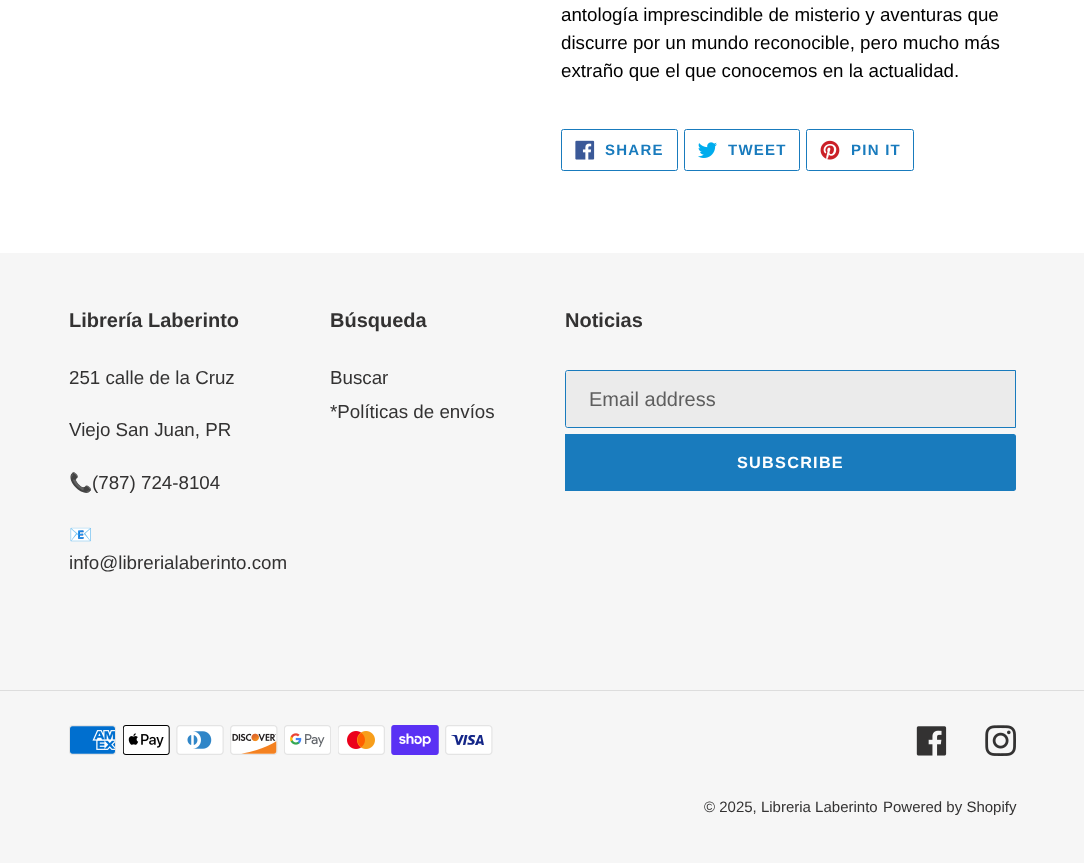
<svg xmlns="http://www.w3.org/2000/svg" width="1084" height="863">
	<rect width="100%" height="100%" fill="#FFFFFF" />
	<g font-family="Liberation Sans" font-size="18.75" fill="#000000">
		<text x="561" y="21">antología imprescindible de misterio y aventuras que</text>
		<text x="561" y="49">discurre por un mundo reconocible, pero mucho más</text>
		<text x="561" y="77">extraño que el que conocemos en la actualidad.</text>
	</g>
	<rect x="561.5" y="129.5" width="116" height="41" rx="2" fill="none" stroke="#197BBD" />
	<image x="575" y="140" width="20" height="20" href="assets/img1.png" />
	<text x="605" y="155" font-family="Liberation Sans" font-size="15" font-weight="700" letter-spacing="1.25" fill="#197BBD">SHARE</text>
	<rect x="684.5" y="129.5" width="115" height="41" rx="2" fill="none" stroke="#197BBD" />
	<image x="698" y="142" width="19" height="16" href="assets/img2.png" />
	<text x="728" y="155" font-family="Liberation Sans" font-size="15" font-weight="700" letter-spacing="1.25" fill="#197BBD">TWEET</text>
	<rect x="806.5" y="129.5" width="107" height="41" rx="2" fill="none" stroke="#197BBD" />
	<image x="820" y="140" width="20" height="20" href="assets/img3.png" />
	<text x="851" y="155" font-family="Liberation Sans" font-size="15" font-weight="700" letter-spacing="1.25" fill="#197BBD">PIN IT</text>
	<rect x="0" y="253" width="1084" height="610" fill="#F6F6F6" />
	<text x="69" y="327" font-family="Liberation Sans" font-size="20" font-weight="700" fill="#333232">Librería Laberinto</text>
	<g font-family="Liberation Sans" font-size="18.75" fill="#333232">
		<text x="69" y="384">251 calle de la Cruz</text>
		<text x="69" y="436">Viejo San Juan, PR</text>
	</g>
	<text x="69" y="489" font-family="Noto Color Emoji" font-size="18.75" fill="#333232">📞</text>
	<text x="92" y="489" font-family="Liberation Sans" font-size="18.75" fill="#333232">(787) 724-8104</text>
	<text x="69" y="541" font-family="Noto Color Emoji" font-size="18.75" fill="#333232">📧</text>
	<text x="69" y="569" font-family="Liberation Sans" font-size="18.75" fill="#333232">info@librerialaberinto.com</text>
	<text x="330" y="327" font-family="Liberation Sans" font-size="20" font-weight="700" fill="#333232">Búsqueda</text>
	<g font-family="Liberation Sans" font-size="18.75" fill="#333232">
		<text x="330" y="384">Buscar</text>
		<text x="330" y="418">*Políticas de envíos</text>
	</g>
	<text x="565" y="327" font-family="Liberation Sans" font-size="20" font-weight="700" fill="#333232">Noticias</text>
	<path d="M567.5 370.5H1015.5V427.5H567.5C566.5 427.5 565.5 426.5 565.5 425.5V372.5C565.5 371.5 566.5 370.5 567.5 370.5Z" fill="#EBEBEB" stroke="#197BBD" />
	<text x="589" y="406" font-family="Liberation Sans" font-size="20" fill="#5E5E5E">Email address</text>
	<path d="M565 434H1013.5C1015 434 1016 435 1016 436.5V488.5C1016 490 1015 491 1013.5 491H565Z" fill="#197BBD" />
	<text x="737" y="468" font-family="Liberation Sans" font-size="16.25" font-weight="700" letter-spacing="1.25" fill="#FFFFFF">SUBSCRIBE</text>
	<rect x="0" y="690" width="1084" height="1" fill="#DDDDDD" />
	<image x="69" y="725" width="47" height="30" href="assets/img4.png" />
	<image x="123" y="725" width="47" height="30" href="assets/img5.png" />
	<image x="176" y="725" width="48" height="30" href="assets/img6.png" />
	<image x="230" y="725" width="48" height="30" href="assets/img7.png" />
	<image x="284" y="725" width="47" height="30" href="assets/img8.png" />
	<image x="338" y="725" width="47" height="30" href="assets/img9.png" />
	<image x="391" y="725" width="48" height="30" href="assets/img10.png" />
	<image x="445" y="725" width="48" height="30" href="assets/img11.png" />
	<image x="916" y="726" width="31" height="30" href="assets/img12.png" />
	<image x="985" y="725" width="31" height="31" href="assets/img13.png" />
	<g font-family="Liberation Sans" font-size="15" fill="#333232">
		<text x="704" y="812">© 2025, Libreria Laberinto</text>
		<text x="883" y="812">Powered by Shopify</text>
	</g>
</svg>
